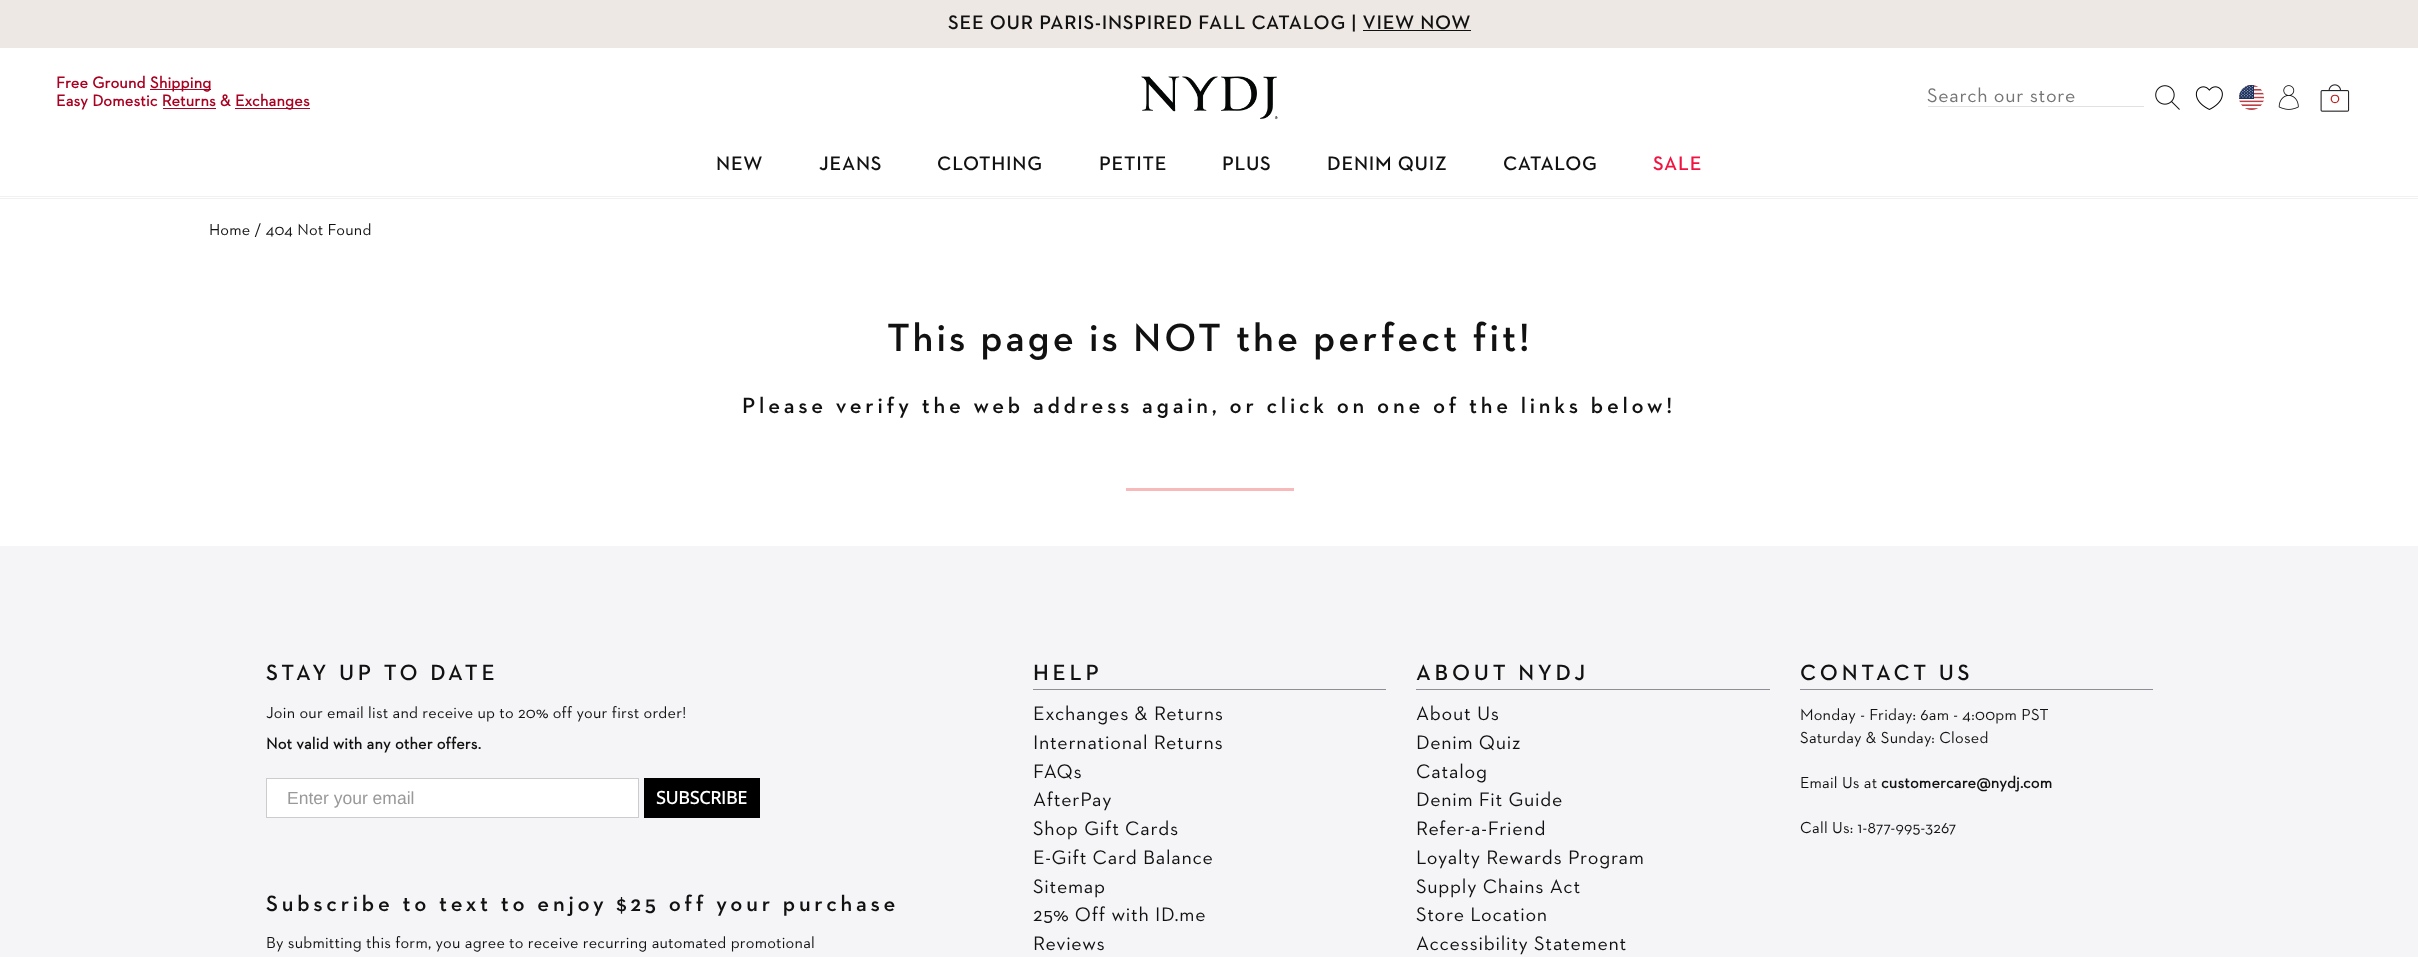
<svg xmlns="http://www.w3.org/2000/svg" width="2418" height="957">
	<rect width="100%" height="100%" fill="#FFFFFF" />
	<rect x="0" y="198" width="2418" height="1" fill="#F1F1F1" />
	<rect x="0" y="0" width="2418" height="48" fill="#EDE8E4" />
	<text x="948" y="29" font-family="'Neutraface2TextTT'" font-size="20" font-weight="600" letter-spacing="0.75" fill="#111111">SEE OUR PARIS-INSPIRED FALL CATALOG | VIEW NOW</text>
	<rect x="1363" y="30" width="108" height="1" fill="#111111" />
	<rect x="0" y="196" width="2418" height="1" fill="#F1F1F1" />
	<text x="56" y="88" font-family="'Neutraface2TextTT'" font-size="16.25" font-weight="700" letter-spacing="0.25" fill="#A80121">Free Ground</text>
	<rect x="150" y="89" width="61" height="1" fill="#A80121" />
	<g font-family="'Neutraface2TextTT'" font-size="16.25" font-weight="700" letter-spacing="0.25" fill="#A80121">
		<text x="150" y="88">Shipping</text>
		<text x="56" y="106">Easy Domestic Returns &amp;</text>
	</g>
	<rect x="163" y="108" width="53" height="1" fill="#A80121" />
	<rect x="235" y="108" width="75" height="1" fill="#A80121" />
	<text x="235" y="106" font-family="'Neutraface2TextTT'" font-size="16.25" font-weight="700" letter-spacing="0.25" fill="#A80121">Exchanges</text>
	<image x="1141" y="76" width="137" height="44" href="assets/img1.png" />
	<rect x="1928" y="106" width="216" height="1" fill="#E1E1E3" />
	<text x="1927" y="102" font-family="'Neutraface2TextTT'" font-size="20" letter-spacing="0.75" fill="#757575">Search our store</text>
	<image x="2155" y="85" width="25" height="25" href="assets/img2.png" />
	<image x="2195" y="86" width="28" height="24" href="assets/img3.png" />
	<image x="2239" y="85" width="25" height="25" href="assets/img4.png" />
	<image x="2278" y="85" width="21" height="25" href="assets/img5.png" />
	<image x="2320" y="84" width="30" height="28" href="assets/img6.png" />
	<text x="2330" y="103" font-family="'Neutraface2TextTT'" font-size="16.25" letter-spacing="0.25" fill="#B92221">0</text>
	<g font-family="'Neutraface2TextTT'" font-size="20" font-weight="600" letter-spacing="0.75" fill="#111111">
		<text x="716" y="170">NEW</text>
		<text x="819" y="170">JEANS</text>
		<text x="937" y="170">CLOTHING</text>
		<text x="1099" y="170">PETITE</text>
		<text x="1222" y="170">PLUS</text>
		<text x="1327" y="170">DENIM QUIZ</text>
		<text x="1503" y="170">CATALOG</text>
	</g>
	<text x="1653" y="170" font-family="'Neutraface2TextTT'" font-size="20" font-weight="600" letter-spacing="0.75" fill="#F11441">SALE</text>
	<text x="209" y="235" font-family="'Neutraface2TextTT'" font-size="16.25" letter-spacing="0.25" fill="#111111">Home / 404 Not Found</text>
	<text x="887" y="351" font-family="'Neutraface2TextTT'" font-size="40" font-weight="600" letter-spacing="3" fill="#111111">This page is NOT the perfect fit!</text>
	<text x="742" y="413" font-family="'Neutraface2TextTT'" font-size="22.5" font-weight="600" letter-spacing="3.75" fill="#111111">Please verify the web address again, or click on one of the links below!</text>
	<rect x="1126" y="488" width="168" height="3" fill="#F7B9BA" />
	<rect x="0" y="546" width="2418" height="411" fill="#F5F5F7" />
	<text x="266" y="680" font-family="'Neutraface2TextTT'" font-size="22.5" font-weight="600" letter-spacing="3.75" fill="#111111">STAY UP TO DATE</text>
	<text x="266" y="718" font-family="'Neutraface2TextTT'" font-size="16.25" letter-spacing="0.25" fill="#111111">Join our email list and receive up to 20% off your first order!</text>
	<text x="266" y="749" font-family="'Neutraface2TextTT'" font-size="16.25" font-weight="700" letter-spacing="0.25" fill="#111111">Not valid with any other offers.</text>
	<rect x="266.5" y="778.5" width="372" height="39" fill="#FFFFFF" stroke="#CCCCCC" />
	<text x="287" y="804" font-family="Liberation Sans" font-size="17.5" fill="#999999">Enter your email</text>
	<rect x="644" y="778" width="116" height="40" fill="#000000" />
	<text x="656" y="804" font-family="Open Sans" font-size="17.5" font-weight="700" fill="#FFFFFF">SUBSCRIBE</text>
	<text x="266" y="911" font-family="'Neutraface2TextTT'" font-size="22.5" font-weight="600" letter-spacing="3.75" fill="#111111">Subscribe to text to enjoy $25 off your purchase</text>
	<text x="266" y="948" font-family="'Neutraface2TextTT'" font-size="16.25" letter-spacing="0.25" fill="#111111">By submitting this form, you agree to receive recurring automated promotional</text>
	<rect x="1033" y="689" width="353" height="1" fill="#8E8E95" />
	<text x="1033" y="680" font-family="'Neutraface2TextTT'" font-size="22.5" font-weight="600" letter-spacing="3.75" fill="#111111">HELP</text>
	<g font-family="'Neutraface2TextTT'" font-size="20" letter-spacing="0.75" fill="#111111">
		<text x="1033" y="720">Exchanges &amp; Returns</text>
		<text x="1033" y="749">International Returns</text>
		<text x="1033" y="778">FAQs</text>
		<text x="1033" y="806">AfterPay</text>
		<text x="1033" y="835">Shop Gift Cards</text>
		<text x="1033" y="864">E-Gift Card Balance</text>
		<text x="1033" y="893">Sitemap</text>
		<text x="1033" y="921">25% Off with ID.me</text>
		<text x="1033" y="950">Reviews</text>
	</g>
	<rect x="1416" y="689" width="354" height="1" fill="#8E8E95" />
	<text x="1416" y="680" font-family="'Neutraface2TextTT'" font-size="22.5" font-weight="600" letter-spacing="3.75" fill="#111111">ABOUT NYDJ</text>
	<g font-family="'Neutraface2TextTT'" font-size="20" letter-spacing="0.75" fill="#111111">
		<text x="1416" y="720">About Us</text>
		<text x="1416" y="749">Denim Quiz</text>
		<text x="1416" y="778">Catalog</text>
		<text x="1416" y="806">Denim Fit Guide</text>
		<text x="1416" y="835">Refer-a-Friend</text>
		<text x="1416" y="864">Loyalty Rewards Program</text>
		<text x="1416" y="893">Supply Chains Act</text>
		<text x="1416" y="921">Store Location</text>
		<text x="1416" y="950">Accessibility Statement</text>
	</g>
	<rect x="1800" y="689" width="353" height="1" fill="#8E8E95" />
	<text x="1800" y="680" font-family="'Neutraface2TextTT'" font-size="22.5" font-weight="600" letter-spacing="3.75" fill="#111111">CONTACT US</text>
	<g font-family="'Neutraface2TextTT'" font-size="16.25" letter-spacing="0.25" fill="#111111">
		<text x="1800" y="720">Monday - Friday: 6am - 4:00pm PST</text>
		<text x="1800" y="743">Saturday &amp; Sunday: Closed</text>
		<text x="1800" y="788">Email Us at</text>
	</g>
	<text x="1881" y="788" font-family="'Neutraface2TextTT'" font-size="16.25" font-weight="700" letter-spacing="0.25" fill="#111111">customercare@nydj.com</text>
	<text x="1800" y="833" font-family="'Neutraface2TextTT'" font-size="16.25" letter-spacing="0.25" fill="#111111">Call Us: 1-877-995-3267</text>
</svg>
